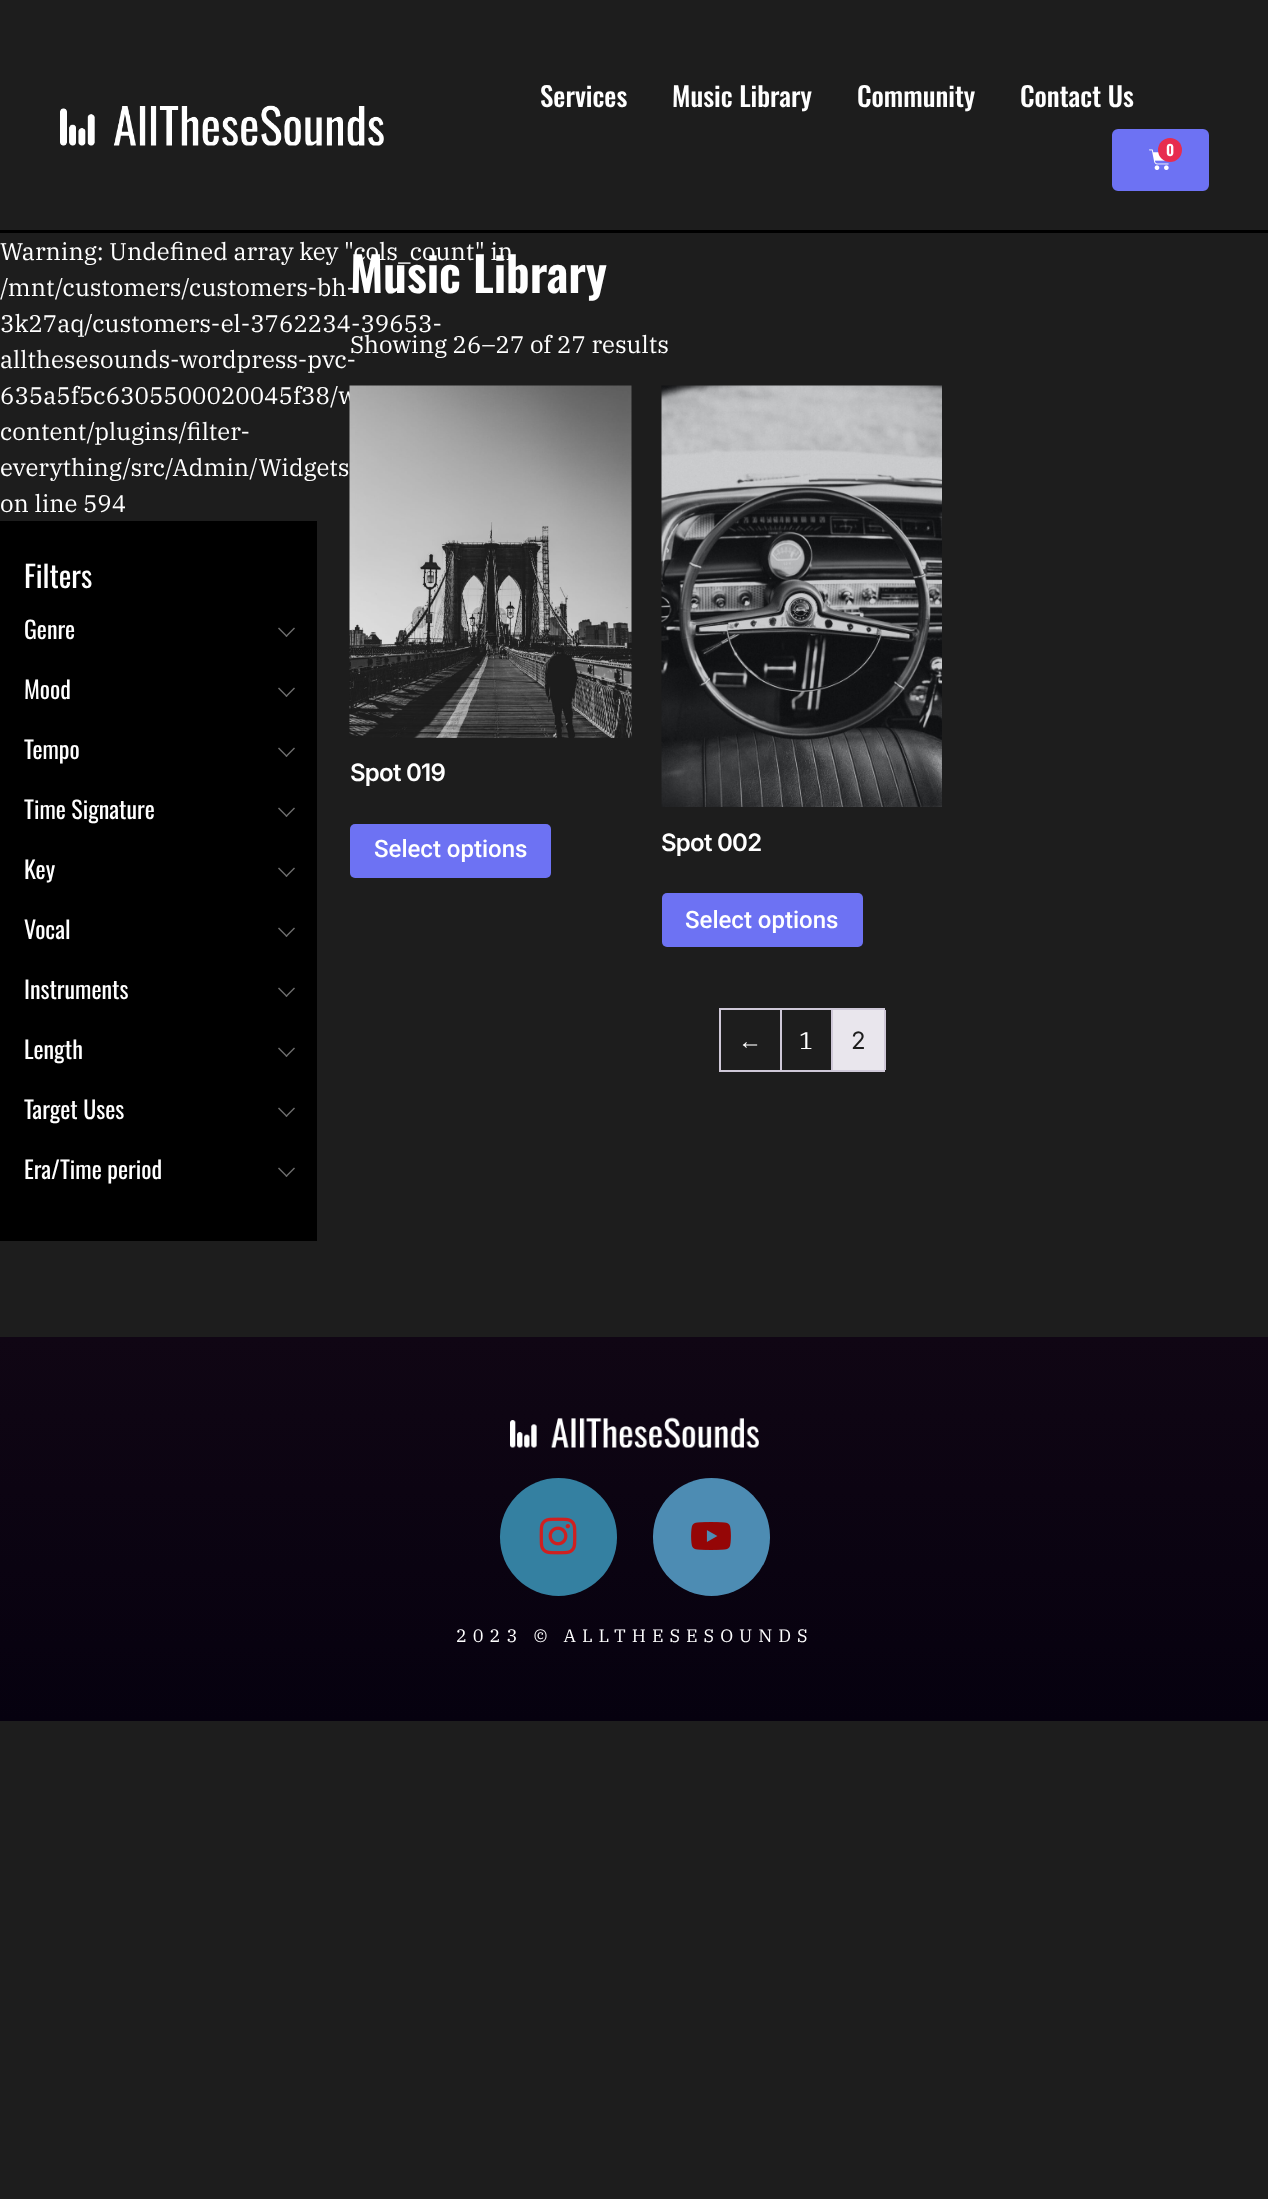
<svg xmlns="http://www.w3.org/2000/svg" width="1268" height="2199">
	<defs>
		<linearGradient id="g1" gradientUnits="userSpaceOnUse" x1="635" y1="1337" x2="635" y2="1721"><stop offset="0" stop-color="#100614" /><stop offset="1" stop-color="#06010F" /></linearGradient>
	</defs>
	<rect width="100%" height="100%" fill="#1D1D1D" />
	<image x="60" y="105" width="324" height="41" href="assets/img1.png" />
	<g font-family="Oswald" font-size="27" font-weight="500" fill="#FFFFFF">
		<text x="540" y="107">Services</text>
		<text x="672" y="107">Music Library</text>
		<text x="857" y="107">Community</text>
		<text x="1020" y="107">Contact Us</text>
	</g>
	<rect x="1113" y="130" width="95" height="60" rx="5" fill="#6D72F3" stroke="#6D72F3" stroke-width="2" />
	<image x="1149" y="149" width="20" height="21" href="assets/img2.png" />
	<circle cx="1170" cy="150" r="12" fill="#E72C4E" />
	<text x="1166" y="156" font-family="Oswald" font-size="15" font-weight="600" fill="#FFFFFF">0</text>
	<rect x="0" y="230" width="1268" height="3" fill="#000000" />
	<g font-family="IBM Plex Serif" font-size="24" fill="#FFFFFF">
		<text x="0" y="260">Warning: Undefined array key "cols_count" in</text>
		<text x="0" y="296">/mnt/customers/customers-bh-</text>
		<text x="0" y="332">3k27aq/customers-el-3762234-39653-</text>
		<text x="0" y="368">allthesesounds-wordpress-pvc-</text>
		<text x="0" y="404">635a5f5c6305500020045f38/w</text>
		<text x="0" y="440">content/plugins/filter-</text>
		<text x="0" y="476">everything/src/Admin/Widgets</text>
		<text x="0" y="512">on line 594</text>
	</g>
	<rect x="0" y="521" width="317" height="720" fill="#000000" />
	<text x="24" y="588" font-family="Oswald" font-size="30" fill="#FFFFFF">Filters</text>
	<text x="24" y="639" font-family="Oswald" font-size="24" fill="#FFFFFF">Genre</text>
	<path d="M286.5 637L278 628.5L279 627.5L287.5 636Z" fill="#6D6D6D" />
	<path d="M286.5 637L285.5 636L294 627.5L295 628.5Z" fill="#6D6D6D" />
	<text x="24" y="699" font-family="Oswald" font-size="24" fill="#FFFFFF">Mood</text>
	<path d="M286.5 697L278 688.5L279 687.5L287.5 696Z" fill="#6D6D6D" />
	<path d="M286.5 697L285.5 696L294 687.5L295 688.5Z" fill="#6D6D6D" />
	<text x="24" y="759" font-family="Oswald" font-size="24" fill="#FFFFFF">Tempo</text>
	<path d="M286.5 757L278 748.5L279 747.5L287.5 756Z" fill="#6D6D6D" />
	<path d="M286.5 757L285.5 756L294 747.5L295 748.5Z" fill="#6D6D6D" />
	<text x="24" y="819" font-family="Oswald" font-size="24" fill="#FFFFFF">Time Signature</text>
	<path d="M286.5 817L278 808.5L279 807.5L287.5 816Z" fill="#6D6D6D" />
	<path d="M286.5 817L285.5 816L294 807.5L295 808.5Z" fill="#6D6D6D" />
	<text x="24" y="879" font-family="Oswald" font-size="24" fill="#FFFFFF">Key</text>
	<path d="M286.5 877L278 868.5L279 867.5L287.5 876Z" fill="#6D6D6D" />
	<path d="M286.5 877L285.5 876L294 867.5L295 868.5Z" fill="#6D6D6D" />
	<text x="24" y="939" font-family="Oswald" font-size="24" fill="#FFFFFF">Vocal</text>
	<path d="M286.5 937L278 928.5L279 927.5L287.5 936Z" fill="#6D6D6D" />
	<path d="M286.5 937L285.5 936L294 927.5L295 928.5Z" fill="#6D6D6D" />
	<text x="24" y="999" font-family="Oswald" font-size="24" fill="#FFFFFF">Instruments</text>
	<path d="M286.5 997L278 988.5L279 987.5L287.5 996Z" fill="#6D6D6D" />
	<path d="M286.5 997L285.5 996L294 987.5L295 988.5Z" fill="#6D6D6D" />
	<text x="24" y="1059" font-family="Oswald" font-size="24" fill="#FFFFFF">Length</text>
	<path d="M286.5 1057L278 1048.5L279 1047.5L287.5 1056Z" fill="#6D6D6D" />
	<path d="M286.5 1057L285.5 1056L294 1047.5L295 1048.5Z" fill="#6D6D6D" />
	<text x="24" y="1119" font-family="Oswald" font-size="24" fill="#FFFFFF">Target Uses</text>
	<path d="M286.5 1117L278 1108.5L279 1107.5L287.5 1116Z" fill="#6D6D6D" />
	<path d="M286.5 1117L285.5 1116L294 1107.5L295 1108.5Z" fill="#6D6D6D" />
	<text x="24" y="1179" font-family="Oswald" font-size="24" fill="#FFFFFF">Era/Time period</text>
	<path d="M286.5 1177L278 1168.5L279 1167.5L287.5 1176Z" fill="#6D6D6D" />
	<path d="M286.5 1177L285.5 1176L294 1167.5L295 1168.5Z" fill="#6D6D6D" />
	<text x="350" y="293" font-family="Oswald" font-size="48" font-weight="600" fill="#FFFFFF">Music Library</text>
	<text x="350" y="353" font-family="IBM Plex Serif" font-size="24" fill="#FFFFFF">Showing 26–27 of 27 results</text>
	<image x="349" y="385" width="283" height="353" href="assets/img3.png" />
	<text x="350" y="781" font-family="Inter" font-size="24" font-weight="600" letter-spacing="-0.75" fill="#FFFFFF">Spot 019</text>
	<rect x="350" y="824" width="201" height="54" rx="5" fill="#6D72F3" />
	<text x="374" y="857" font-family="Roboto" font-size="24" font-weight="500" fill="#FFFFFF">Select options</text>
	<image x="661" y="385" width="281" height="422" href="assets/img4.png" />
	<text x="661" y="851" font-family="Inter" font-size="24" font-weight="600" letter-spacing="-0.75" fill="#FFFFFF">Spot 002</text>
	<rect x="662" y="893" width="201" height="54" rx="5" fill="#6D72F3" />
	<text x="685" y="928" font-family="Roboto" font-size="24" font-weight="500" fill="#FFFFFF">Select options</text>
	<rect x="719" y="1008" width="166" height="2" fill="#CFC8D8" />
	<rect x="719" y="1070" width="166" height="2" fill="#CFC8D8" />
	<rect x="719" y="1008" width="2" height="63" fill="#CFC8D8" />
	<rect x="780" y="1010" width="2" height="60" fill="#CFC8D8" />
	<text x="738" y="1049" font-family="Liberation Sans" font-size="24" fill="#FFFFFF">←</text>
	<rect x="831" y="1010" width="2" height="60" fill="#CFC8D8" />
	<text x="799" y="1049" font-family="IBM Plex Serif" font-size="24" fill="#FFFFFF">1</text>
	<rect x="884" y="1010" width="2" height="60" fill="#CFC8D8" />
	<rect x="833" y="1010" width="51" height="60" fill="#E9E6ED" />
	<text x="851" y="1049" font-family="Inter" font-size="24" fill="#1D1D1D">2</text>
	<rect x="0" y="1337" width="1268" height="384" fill="url(#g1)" />
	<image x="510" y="1417" width="249" height="31" href="assets/img5.png" />
	<rect x="500" y="1478" width="117" height="118" rx="58.5" fill="#3480A1" />
	<image x="539" y="1517" width="38" height="38" href="assets/img6.png" />
	<rect x="653" y="1478" width="117" height="118" rx="58.5" fill="#4D8CB3" />
	<image x="691" y="1522" width="40" height="28" href="assets/img7.png" />
	<text x="456" y="1642" font-family="IBM Plex Serif" font-size="18" letter-spacing="6" fill="#FFFFFF">2023 © ALLTHESESOUNDS</text>
</svg>
